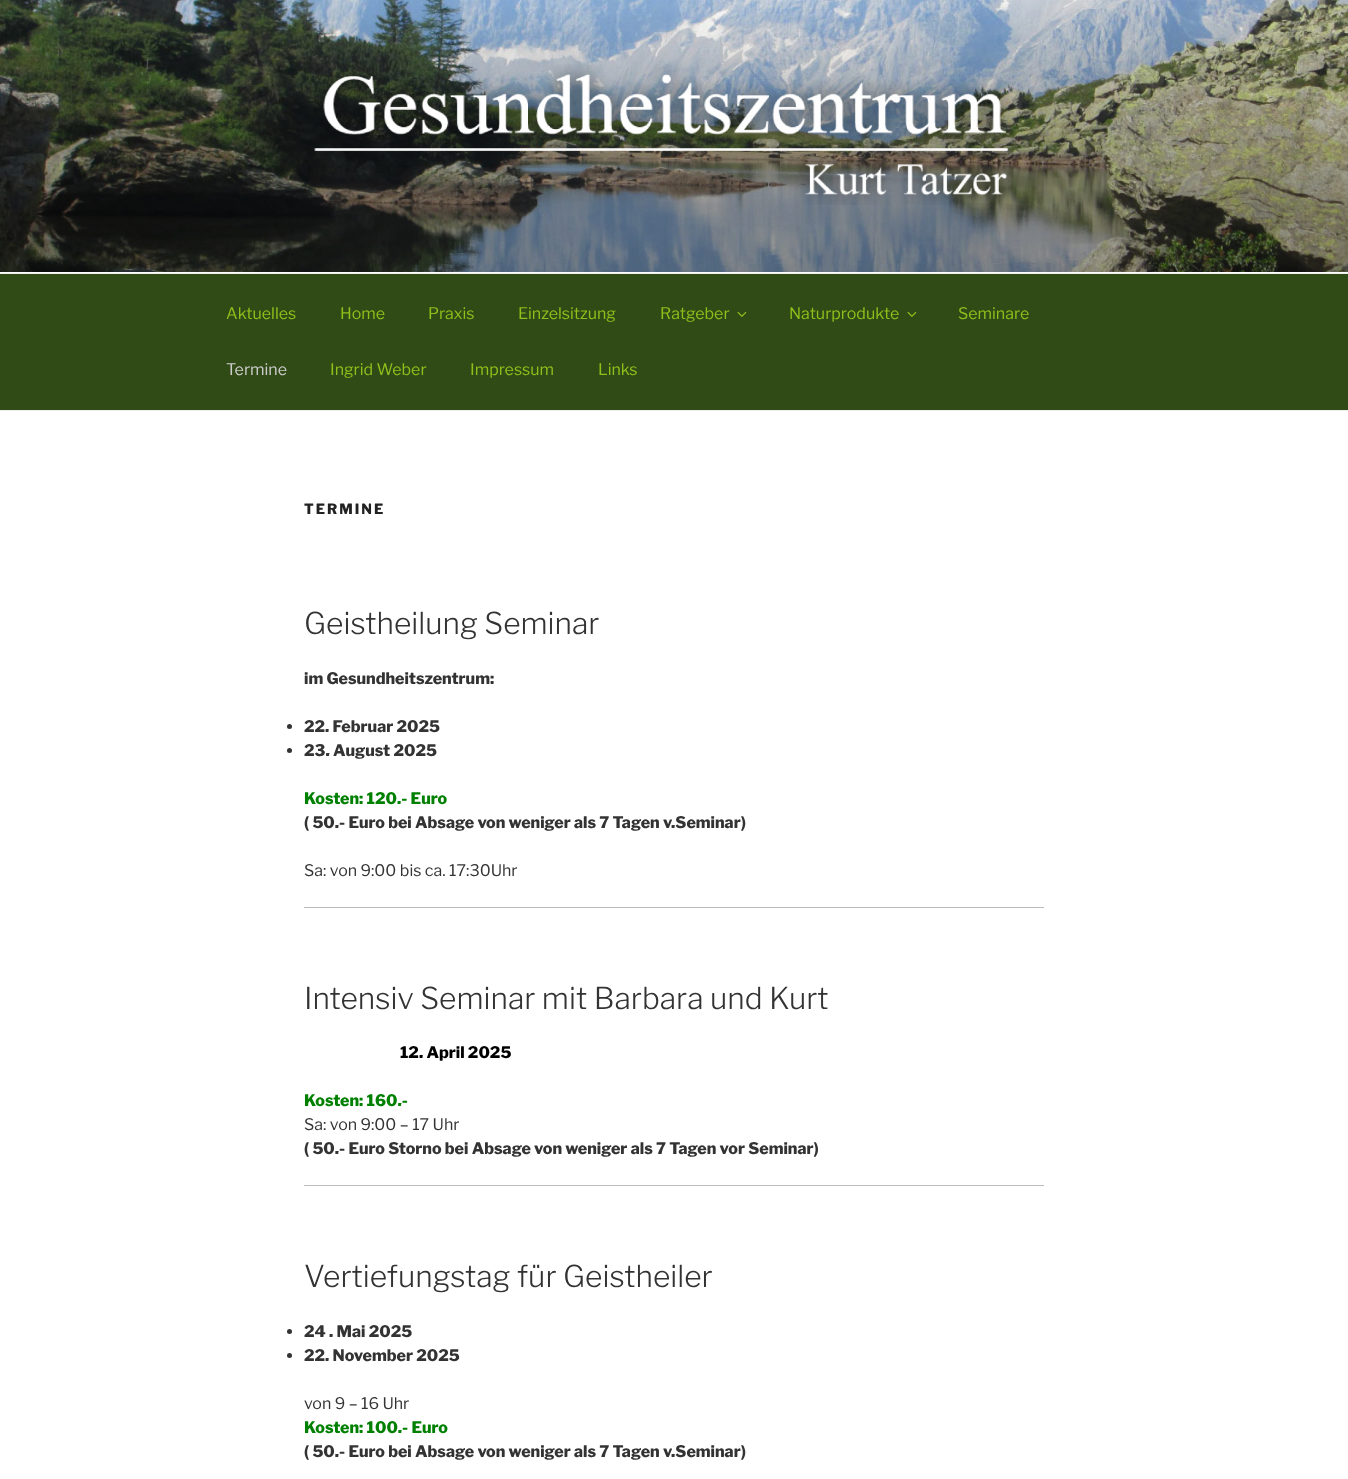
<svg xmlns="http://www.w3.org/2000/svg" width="1348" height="1479">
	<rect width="100%" height="100%" fill="#FFFFFF" />
	<rect x="0" y="272" width="1348" height="1" fill="#FAFAFA" />
	<image x="0" y="0" width="1348" height="272" href="assets/img1.png" />
	<image x="314" y="64" width="700" height="141" href="assets/img2.png" />
	<rect x="0" y="274" width="1348" height="136" fill="#304B15" />
	<rect x="0" y="273" width="1348" height="1" fill="#EEEEEE" />
	<rect x="0" y="410" width="1348" height="1" fill="#EEEEEE" />
	<g font-family="'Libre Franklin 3'" font-size="16" font-weight="100" fill="#8FBF1C">
		<text x="226" y="319">Aktuelles</text>
		<text x="340" y="319">Home</text>
		<text x="428" y="319">Praxis</text>
		<text x="518" y="319">Einzelsitzung</text>
		<text x="660" y="319">Ratgeber</text>
	</g>
	<image x="737" y="311" width="10" height="6" href="assets/img3.png" />
	<text x="789" y="319" font-family="'Libre Franklin 3'" font-size="16" font-weight="100" fill="#8FBF1C">Naturprodukte</text>
	<image x="907" y="311" width="10" height="6" href="assets/img3.png" />
	<text x="958" y="319" font-family="'Libre Franklin 3'" font-size="16" font-weight="100" fill="#8FBF1C">Seminare</text>
	<text x="226" y="375" font-family="'Libre Franklin 3'" font-size="16" font-weight="100" fill="#CCCCCC">Termine</text>
	<g font-family="'Libre Franklin 3'" font-size="16" font-weight="100" fill="#8FBF1C">
		<text x="330" y="375">Ingrid Weber</text>
		<text x="470" y="375">Impressum</text>
		<text x="598" y="375">Links</text>
	</g>
	<text x="304" y="514" font-family="Libre Franklin" font-size="14" font-weight="100" letter-spacing="2" fill="#222222">TERMINE</text>
	<text x="304" y="634" font-family="'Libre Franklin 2'" font-size="30" font-weight="100" fill="#333333">Geistheilung Seminar</text>
	<text x="304" y="684" font-family="Libre Franklin" font-size="16" font-weight="100" fill="#333333">im Gesundheitszentrum:</text>
	<circle cx="289.5" cy="726.5" r="2.5" fill="#333333" />
	<text x="304" y="732" font-family="Libre Franklin" font-size="16" font-weight="100" fill="#333333">22. Februar 2025</text>
	<circle cx="289.5" cy="750.5" r="2.5" fill="#333333" />
	<text x="304" y="756" font-family="Libre Franklin" font-size="16" font-weight="100" fill="#333333">23. August 2025</text>
	<text x="304" y="804" font-family="Libre Franklin" font-size="16" font-weight="100" fill="#008000">Kosten: 120.- Euro</text>
	<text x="304" y="828" font-family="Libre Franklin" font-size="16" font-weight="100" fill="#333333">( 50.- Euro bei Absage von weniger als 7 Tagen v.Seminar)</text>
	<text x="304" y="876" font-family="'Libre Franklin 3'" font-size="16" font-weight="100" fill="#333333">Sa: von 9:00 bis ca. 17:30Uhr</text>
	<rect x="304" y="907" width="740" height="1" fill="#BBBBBB" />
	<text x="304" y="1009" font-family="'Libre Franklin 2'" font-size="30" font-weight="100" fill="#333333">Intensiv Seminar mit Barbara und Kurt</text>
	<text x="400" y="1058" font-family="Libre Franklin" font-size="16" font-weight="100" fill="#000000">12. April 2025</text>
	<text x="304" y="1106" font-family="Libre Franklin" font-size="16" font-weight="100" fill="#008000">Kosten: 160.-</text>
	<text x="304" y="1130" font-family="'Libre Franklin 3'" font-size="16" font-weight="100" fill="#333333">Sa: von 9:00 – 17 Uhr</text>
	<text x="304" y="1154" font-family="Libre Franklin" font-size="16" font-weight="100" fill="#333333">( 50.- Euro Storno bei Absage von weniger als 7 Tagen vor Seminar)</text>
	<rect x="304" y="1185" width="740" height="1" fill="#BBBBBB" />
	<text x="304" y="1287" font-family="'Libre Franklin 2'" font-size="30" font-weight="100" fill="#333333">Vertiefungstag für Geistheiler</text>
	<circle cx="289.5" cy="1331.5" r="2.5" fill="#333333" />
	<text x="304" y="1337" font-family="Libre Franklin" font-size="16" font-weight="100" fill="#333333">24 . Mai 2025</text>
	<circle cx="289.5" cy="1355.5" r="2.5" fill="#333333" />
	<text x="304" y="1361" font-family="Libre Franklin" font-size="16" font-weight="100" fill="#333333">22. November 2025</text>
	<text x="304" y="1409" font-family="'Libre Franklin 3'" font-size="16" font-weight="100" fill="#333333">von 9 – 16 Uhr</text>
	<text x="304" y="1433" font-family="Libre Franklin" font-size="16" font-weight="100" fill="#008000">Kosten: 100.- Euro</text>
	<text x="304" y="1457" font-family="Libre Franklin" font-size="16" font-weight="100" fill="#333333">( 50.- Euro bei Absage von weniger als 7 Tagen v.Seminar)</text>
</svg>
